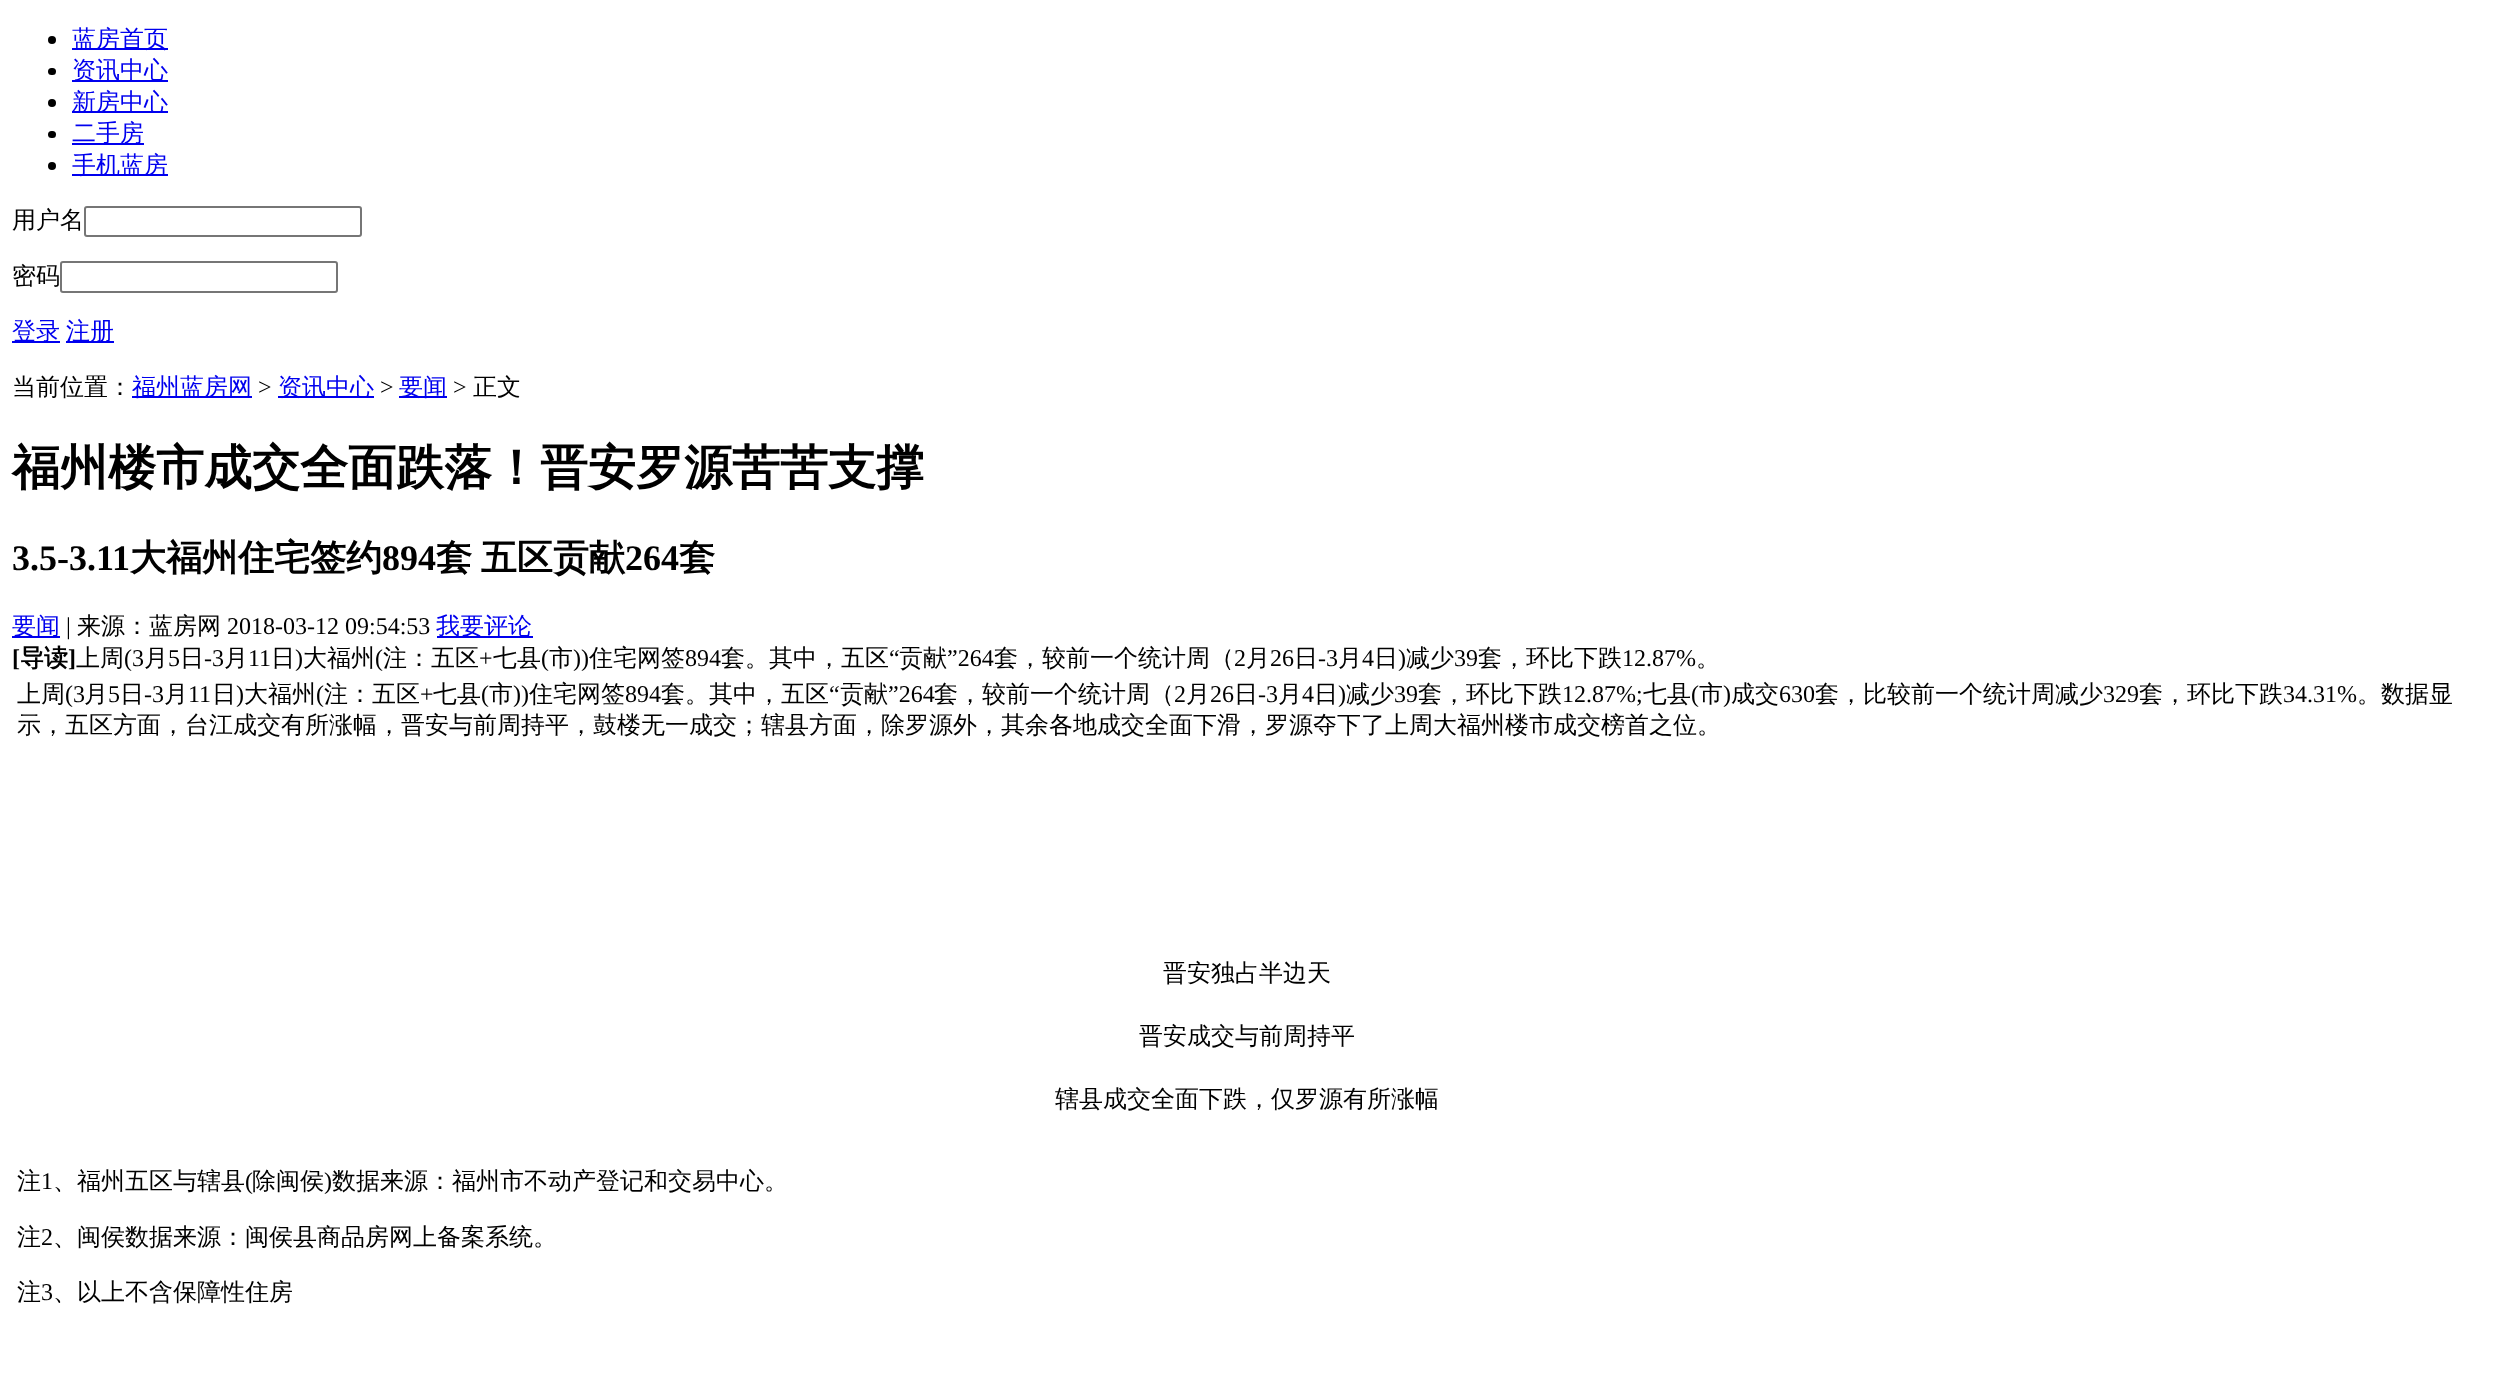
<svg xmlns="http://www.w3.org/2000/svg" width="2494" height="1374">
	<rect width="100%" height="100%" fill="#FFFFFF" />
	<circle cx="52" cy="40" r="4" fill="#000000" />
	<rect x="72" y="48" width="96" height="2" fill="#0000EE" />
	<text x="72" y="47" font-family="WenQuanYi Zen Hei" font-size="24" font-weight="500" fill="#0000EE">蓝房首页</text>
	<rect x="48" y="68" width="8" height="7" rx="3.5" fill="#000000" />
	<rect x="72" y="80" width="96" height="2" fill="#0000EE" />
	<text x="72" y="78" font-family="WenQuanYi Zen Hei" font-size="24" font-weight="500" fill="#0000EE">资讯中心</text>
	<circle cx="52" cy="103" r="4" fill="#000000" />
	<rect x="72" y="111" width="96" height="2" fill="#0000EE" />
	<text x="72" y="110" font-family="WenQuanYi Zen Hei" font-size="24" font-weight="500" fill="#0000EE">新房中心</text>
	<rect x="48" y="131" width="8" height="7" rx="3.5" fill="#000000" />
	<rect x="72" y="143" width="72" height="2" fill="#0000EE" />
	<text x="72" y="141" font-family="WenQuanYi Zen Hei" font-size="24" font-weight="500" fill="#0000EE">二手房</text>
	<circle cx="52" cy="166" r="4" fill="#000000" />
	<rect x="72" y="174" width="96" height="2" fill="#0000EE" />
	<text x="72" y="173" font-family="WenQuanYi Zen Hei" font-size="24" font-weight="500" fill="#0000EE">手机蓝房</text>
	<text x="12" y="228" font-family="WenQuanYi Zen Hei" font-size="24" font-weight="500" fill="#000000">用户名</text>
	<rect x="85" y="207" width="276" height="29" rx="2" fill="none" stroke="#767676" stroke-width="2" />
	<text x="12" y="284" font-family="WenQuanYi Zen Hei" font-size="24" font-weight="500" fill="#000000">密码</text>
	<rect x="61" y="262" width="276" height="30" rx="2" fill="none" stroke="#767676" stroke-width="2" />
	<rect x="12" y="341" width="48" height="2" fill="#0000EE" />
	<text x="12" y="339" font-family="WenQuanYi Zen Hei" font-size="24" font-weight="500" fill="#0000EE">登录</text>
	<rect x="66" y="341" width="48" height="2" fill="#0000EE" />
	<text x="66" y="339" font-family="WenQuanYi Zen Hei" font-size="24" font-weight="500" fill="#0000EE">注册</text>
	<text x="12" y="395" font-family="WenQuanYi Zen Hei" font-size="24" font-weight="500" fill="#000000">当前位置：</text>
	<rect x="132" y="396" width="120" height="2" fill="#0000EE" />
	<text x="132" y="395" font-family="WenQuanYi Zen Hei" font-size="24" font-weight="500" fill="#0000EE">福州蓝房网</text>
	<text x="258" y="395" font-family="Liberation Serif" font-size="24" fill="#000000">&gt;</text>
	<rect x="278" y="396" width="96" height="2" fill="#0000EE" />
	<text x="278" y="395" font-family="WenQuanYi Zen Hei" font-size="24" font-weight="500" fill="#0000EE">资讯中心</text>
	<text x="380" y="395" font-family="Liberation Serif" font-size="24" fill="#000000">&gt;</text>
	<rect x="399" y="396" width="48" height="2" fill="#0000EE" />
	<text x="399" y="395" font-family="WenQuanYi Zen Hei" font-size="24" font-weight="500" fill="#0000EE">要闻</text>
	<text x="453" y="395" font-family="Liberation Serif" font-size="24" fill="#000000">&gt;</text>
	<text x="473" y="395" font-family="WenQuanYi Zen Hei" font-size="24" font-weight="500" fill="#000000">正文</text>
	<text x="12" y="484" font-family="WenQuanYi Zen Hei" font-size="48" font-weight="700" fill="#000000">福州楼市成交全面跌落！晋安罗源苦苦支撑</text>
	<text x="12" y="570" font-family="Liberation Serif" font-size="36" font-weight="700" fill="#000000">3.5-3.11</text>
	<text x="130" y="570" font-family="WenQuanYi Zen Hei" font-size="36" font-weight="700" fill="#000000">大福州住宅签约</text>
	<text x="382" y="570" font-family="Liberation Serif" font-size="36" font-weight="700" fill="#000000">894</text>
	<text x="436" y="570" word-spacing="-2" font-family="WenQuanYi Zen Hei" font-size="36" font-weight="700" fill="#000000">套 五区贡献</text>
	<text x="625" y="570" font-family="Liberation Serif" font-size="36" font-weight="700" fill="#000000">264</text>
	<text x="679" y="570" font-family="WenQuanYi Zen Hei" font-size="36" font-weight="700" fill="#000000">套</text>
	<rect x="12" y="636" width="48" height="2" fill="#0000EE" />
	<text x="12" y="634" font-family="WenQuanYi Zen Hei" font-size="24" font-weight="500" fill="#0000EE">要闻</text>
	<text x="66" y="634" font-family="Liberation Serif" font-size="24" fill="#000000">|</text>
	<text x="77" y="634" font-family="WenQuanYi Zen Hei" font-size="24" font-weight="500" fill="#000000">来源：蓝房网</text>
	<text x="227" y="634" font-family="Liberation Serif" font-size="24" fill="#000000">2018-03-12 09:54:53</text>
	<rect x="437" y="636" width="96" height="2" fill="#0000EE" />
	<text x="436" y="634" font-family="WenQuanYi Zen Hei" font-size="24" font-weight="500" fill="#0000EE">我要评论</text>
	<text x="12" y="666" font-family="Liberation Serif" font-size="24" font-weight="700" fill="#000000">[</text>
	<text x="20" y="666" font-family="WenQuanYi Zen Hei" font-size="24" font-weight="700" fill="#000000">导读</text>
	<text x="68" y="666" font-family="Liberation Serif" font-size="24" font-weight="700" fill="#000000">]</text>
	<text x="76" y="666" font-family="WenQuanYi Zen Hei" font-size="24" font-weight="500" fill="#000000">上周</text>
	<text x="124" y="666" font-family="Liberation Serif" font-size="24" fill="#000000">(3</text>
	<text x="144" y="666" font-family="WenQuanYi Zen Hei" font-size="24" font-weight="500" fill="#000000">月</text>
	<text x="168" y="666" font-family="Liberation Serif" font-size="24" fill="#000000">5</text>
	<text x="180" y="666" font-family="WenQuanYi Zen Hei" font-size="24" font-weight="500" fill="#000000">日</text>
	<text x="204" y="666" font-family="Liberation Serif" font-size="24" fill="#000000">-3</text>
	<text x="224" y="666" font-family="WenQuanYi Zen Hei" font-size="24" font-weight="500" fill="#000000">月</text>
	<text x="248" y="666" font-family="Liberation Serif" font-size="24" fill="#000000">11</text>
	<text x="271" y="666" font-family="WenQuanYi Zen Hei" font-size="24" font-weight="500" fill="#000000">日</text>
	<text x="295" y="666" font-family="Liberation Serif" font-size="24" fill="#000000">)</text>
	<text x="303" y="666" font-family="WenQuanYi Zen Hei" font-size="24" font-weight="500" fill="#000000">大福州</text>
	<text x="375" y="666" font-family="Liberation Serif" font-size="24" fill="#000000">(</text>
	<text x="383" y="666" font-family="WenQuanYi Zen Hei" font-size="24" font-weight="500" fill="#000000">注：五区</text>
	<text x="479" y="666" font-family="Liberation Serif" font-size="24" fill="#000000">+</text>
	<text x="493" y="666" font-family="WenQuanYi Zen Hei" font-size="24" font-weight="500" fill="#000000">七县</text>
	<text x="541" y="666" font-family="Liberation Serif" font-size="24" fill="#000000">(</text>
	<text x="549" y="666" font-family="WenQuanYi Zen Hei" font-size="24" font-weight="500" fill="#000000">市</text>
	<text x="573" y="666" font-family="Liberation Serif" font-size="24" fill="#000000">))</text>
	<text x="589" y="666" font-family="WenQuanYi Zen Hei" font-size="24" font-weight="500" fill="#000000">住宅网签</text>
	<text x="685" y="666" font-family="Liberation Serif" font-size="24" fill="#000000">894</text>
	<text x="721" y="666" font-family="WenQuanYi Zen Hei" font-size="24" font-weight="500" fill="#000000">套。其中，五区</text>
	<text x="889" y="666" font-family="Liberation Serif" font-size="24" fill="#000000">“</text>
	<text x="899" y="666" font-family="WenQuanYi Zen Hei" font-size="24" font-weight="500" fill="#000000">贡献</text>
	<text x="947" y="666" font-family="Liberation Serif" font-size="24" fill="#000000">”264</text>
	<text x="994" y="666" font-family="WenQuanYi Zen Hei" font-size="24" font-weight="500" fill="#000000">套，较前一个统计周（</text>
	<text x="1234" y="666" font-family="Liberation Serif" font-size="24" fill="#000000">2</text>
	<text x="1246" y="666" font-family="WenQuanYi Zen Hei" font-size="24" font-weight="500" fill="#000000">月</text>
	<text x="1270" y="666" font-family="Liberation Serif" font-size="24" fill="#000000">26</text>
	<text x="1294" y="666" font-family="WenQuanYi Zen Hei" font-size="24" font-weight="500" fill="#000000">日</text>
	<text x="1318" y="666" font-family="Liberation Serif" font-size="24" fill="#000000">-3</text>
	<text x="1338" y="666" font-family="WenQuanYi Zen Hei" font-size="24" font-weight="500" fill="#000000">月</text>
	<text x="1362" y="666" font-family="Liberation Serif" font-size="24" fill="#000000">4</text>
	<text x="1374" y="666" font-family="WenQuanYi Zen Hei" font-size="24" font-weight="500" fill="#000000">日</text>
	<text x="1398" y="666" font-family="Liberation Serif" font-size="24" fill="#000000">)</text>
	<text x="1406" y="666" font-family="WenQuanYi Zen Hei" font-size="24" font-weight="500" fill="#000000">减少</text>
	<text x="1454" y="666" font-family="Liberation Serif" font-size="24" fill="#000000">39</text>
	<text x="1478" y="666" font-family="WenQuanYi Zen Hei" font-size="24" font-weight="500" fill="#000000">套，环比下跌</text>
	<text x="1622" y="666" font-family="Liberation Serif" font-size="24" fill="#000000">12.87%</text>
	<g font-family="WenQuanYi Zen Hei" font-size="24" font-weight="500" fill="#000000">
		<text x="1696" y="666">。</text>
		<text x="17" y="702">上周</text>
	</g>
	<text x="65" y="702" font-family="Liberation Serif" font-size="24" fill="#000000">(3</text>
	<text x="84" y="702" font-family="WenQuanYi Zen Hei" font-size="24" font-weight="500" fill="#000000">月</text>
	<text x="108" y="702" font-family="Liberation Serif" font-size="24" fill="#000000">5</text>
	<text x="120" y="702" font-family="WenQuanYi Zen Hei" font-size="24" font-weight="500" fill="#000000">日</text>
	<text x="144" y="702" font-family="Liberation Serif" font-size="24" fill="#000000">-3</text>
	<text x="164" y="702" font-family="WenQuanYi Zen Hei" font-size="24" font-weight="500" fill="#000000">月</text>
	<text x="188" y="702" font-family="Liberation Serif" font-size="24" fill="#000000">11</text>
	<text x="212" y="702" font-family="WenQuanYi Zen Hei" font-size="24" font-weight="500" fill="#000000">日</text>
	<text x="236" y="702" font-family="Liberation Serif" font-size="24" fill="#000000">)</text>
	<text x="244" y="702" font-family="WenQuanYi Zen Hei" font-size="24" font-weight="500" fill="#000000">大福州</text>
	<text x="316" y="702" font-family="Liberation Serif" font-size="24" fill="#000000">(</text>
	<text x="324" y="702" font-family="WenQuanYi Zen Hei" font-size="24" font-weight="500" fill="#000000">注：五区</text>
	<text x="420" y="702" font-family="Liberation Serif" font-size="24" fill="#000000">+</text>
	<text x="433" y="702" font-family="WenQuanYi Zen Hei" font-size="24" font-weight="500" fill="#000000">七县</text>
	<text x="481" y="702" font-family="Liberation Serif" font-size="24" fill="#000000">(</text>
	<text x="489" y="702" font-family="WenQuanYi Zen Hei" font-size="24" font-weight="500" fill="#000000">市</text>
	<text x="513" y="702" font-family="Liberation Serif" font-size="24" fill="#000000">))</text>
	<text x="529" y="702" font-family="WenQuanYi Zen Hei" font-size="24" font-weight="500" fill="#000000">住宅网签</text>
	<text x="625" y="702" font-family="Liberation Serif" font-size="24" fill="#000000">894</text>
	<text x="661" y="702" font-family="WenQuanYi Zen Hei" font-size="24" font-weight="500" fill="#000000">套。其中，五区</text>
	<text x="829" y="702" font-family="Liberation Serif" font-size="24" fill="#000000">“</text>
	<text x="840" y="702" font-family="WenQuanYi Zen Hei" font-size="24" font-weight="500" fill="#000000">贡献</text>
	<text x="888" y="702" font-family="Liberation Serif" font-size="24" fill="#000000">”264</text>
	<text x="934" y="702" font-family="WenQuanYi Zen Hei" font-size="24" font-weight="500" fill="#000000">套，较前一个统计周（</text>
	<text x="1174" y="702" font-family="Liberation Serif" font-size="24" fill="#000000">2</text>
	<text x="1186" y="702" font-family="WenQuanYi Zen Hei" font-size="24" font-weight="500" fill="#000000">月</text>
	<text x="1210" y="702" font-family="Liberation Serif" font-size="24" fill="#000000">26</text>
	<text x="1234" y="702" font-family="WenQuanYi Zen Hei" font-size="24" font-weight="500" fill="#000000">日</text>
	<text x="1258" y="702" font-family="Liberation Serif" font-size="24" fill="#000000">-3</text>
	<text x="1278" y="702" font-family="WenQuanYi Zen Hei" font-size="24" font-weight="500" fill="#000000">月</text>
	<text x="1302" y="702" font-family="Liberation Serif" font-size="24" fill="#000000">4</text>
	<text x="1314" y="702" font-family="WenQuanYi Zen Hei" font-size="24" font-weight="500" fill="#000000">日</text>
	<text x="1338" y="702" font-family="Liberation Serif" font-size="24" fill="#000000">)</text>
	<text x="1346" y="702" font-family="WenQuanYi Zen Hei" font-size="24" font-weight="500" fill="#000000">减少</text>
	<text x="1394" y="702" font-family="Liberation Serif" font-size="24" fill="#000000">39</text>
	<text x="1418" y="702" font-family="WenQuanYi Zen Hei" font-size="24" font-weight="500" fill="#000000">套，环比下跌</text>
	<text x="1562" y="702" font-family="Liberation Serif" font-size="24" fill="#000000">12.87%;</text>
	<text x="1643" y="702" font-family="WenQuanYi Zen Hei" font-size="24" font-weight="500" fill="#000000">七县</text>
	<text x="1691" y="702" font-family="Liberation Serif" font-size="24" fill="#000000">(</text>
	<text x="1699" y="702" font-family="WenQuanYi Zen Hei" font-size="24" font-weight="500" fill="#000000">市</text>
	<text x="1723" y="702" font-family="Liberation Serif" font-size="24" fill="#000000">)</text>
	<text x="1731" y="702" font-family="WenQuanYi Zen Hei" font-size="24" font-weight="500" fill="#000000">成交</text>
	<text x="1779" y="702" font-family="Liberation Serif" font-size="24" fill="#000000">630</text>
	<text x="1815" y="702" font-family="WenQuanYi Zen Hei" font-size="24" font-weight="500" fill="#000000">套，比较前一个统计周减少</text>
	<text x="2103" y="702" font-family="Liberation Serif" font-size="24" fill="#000000">329</text>
	<text x="2139" y="702" font-family="WenQuanYi Zen Hei" font-size="24" font-weight="500" fill="#000000">套，环比下跌</text>
	<text x="2283" y="702" font-family="Liberation Serif" font-size="24" fill="#000000">34.31%</text>
	<g font-family="WenQuanYi Zen Hei" font-size="24" font-weight="500" fill="#000000">
		<text x="2357" y="702">。数据显</text>
		<text x="17" y="733">示，五区方面，台江成交有所涨幅，晋安与前周持平，鼓楼无一成交；辖县方面，除罗源外，其余各地成交全面下滑，罗源夺下了上周大福州楼市成交榜首之位。</text>
		<text x="1163" y="981">晋安独占半边天</text>
		<text x="1139" y="1044">晋安成交与前周持平</text>
		<text x="1055" y="1107">辖县成交全面下跌，仅罗源有所涨幅</text>
		<text x="17" y="1189">注</text>
	</g>
	<text x="41" y="1189" font-family="Liberation Serif" font-size="24" fill="#000000">1</text>
	<text x="53" y="1189" font-family="WenQuanYi Zen Hei" font-size="24" font-weight="500" fill="#000000">、福州五区与辖县</text>
	<text x="245" y="1189" font-family="Liberation Serif" font-size="24" fill="#000000">(</text>
	<text x="252" y="1189" font-family="WenQuanYi Zen Hei" font-size="24" font-weight="500" fill="#000000">除闽侯</text>
	<text x="324" y="1189" font-family="Liberation Serif" font-size="24" fill="#000000">)</text>
	<g font-family="WenQuanYi Zen Hei" font-size="24" font-weight="500" fill="#000000">
		<text x="332" y="1189">数据来源：福州市不动产登记和交易中心。</text>
		<text x="17" y="1245">注</text>
	</g>
	<text x="41" y="1245" font-family="Liberation Serif" font-size="24" fill="#000000">2</text>
	<g font-family="WenQuanYi Zen Hei" font-size="24" font-weight="500" fill="#000000">
		<text x="53" y="1245">、闽侯数据来源：闽侯县商品房网上备案系统。</text>
		<text x="17" y="1300">注</text>
	</g>
	<text x="41" y="1300" font-family="Liberation Serif" font-size="24" fill="#000000">3</text>
	<text x="53" y="1300" font-family="WenQuanYi Zen Hei" font-size="24" font-weight="500" fill="#000000">、以上不含保障性住房</text>
</svg>
